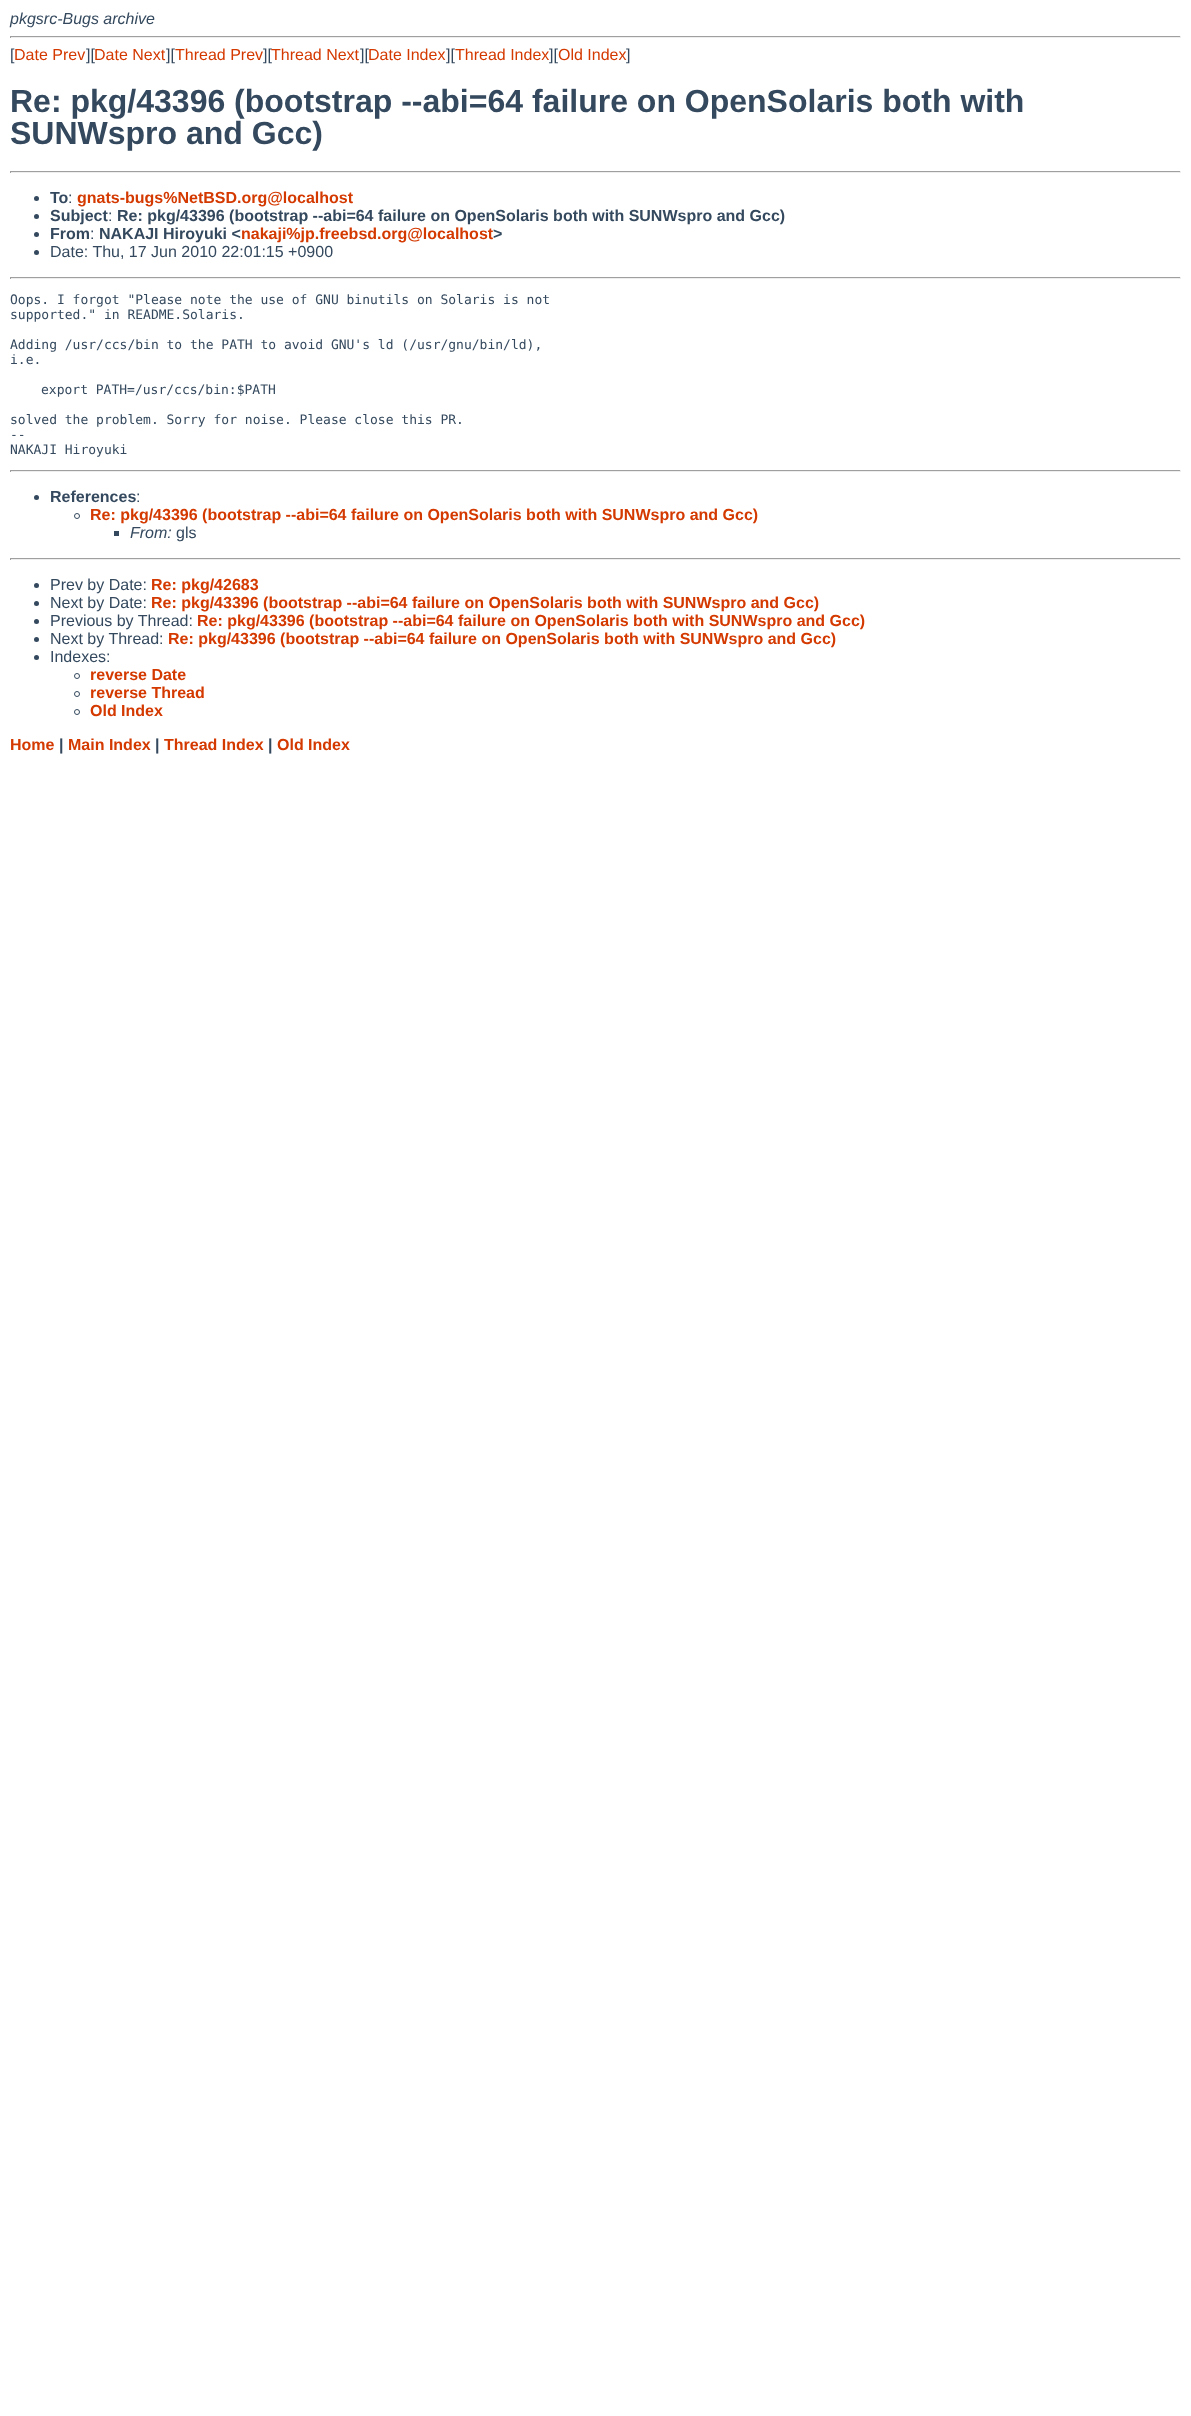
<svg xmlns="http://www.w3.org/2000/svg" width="1191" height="2416">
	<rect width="100%" height="100%" fill="#FFFFFF" />
	<text x="10" y="24" font-family="Liberation Sans" font-size="16" font-style="italic" fill="#34495E">pkgsrc-Bugs archive</text>
	<rect x="10" y="36" width="1171" height="1" fill="#9F9F9F" />
	<rect x="1180" y="36" width="1" height="2" fill="#EEEEEE" />
	<rect x="10" y="37" width="1171" height="1" fill="#EEEEEE" />
	<rect x="10" y="36" width="1" height="2" fill="#9F9F9F" />
	<text x="10" y="60" font-family="Liberation Sans" font-size="16" fill="#34495E">[</text>
	<text x="14" y="60" font-family="Liberation Sans" font-size="16" fill="#D43900">Date Prev</text>
	<text x="86" y="60" font-family="Liberation Sans" font-size="16" fill="#34495E">][</text>
	<text x="94" y="60" font-family="Liberation Sans" font-size="16" fill="#D43900">Date Next</text>
	<text x="166" y="60" font-family="Liberation Sans" font-size="16" fill="#34495E">][</text>
	<text x="175" y="60" font-family="Liberation Sans" font-size="16" fill="#D43900">Thread Prev</text>
	<text x="263" y="60" font-family="Liberation Sans" font-size="16" fill="#34495E">][</text>
	<text x="271" y="60" font-family="Liberation Sans" font-size="16" fill="#D43900">Thread Next</text>
	<text x="360" y="60" font-family="Liberation Sans" font-size="16" fill="#34495E">][</text>
	<text x="368" y="60" font-family="Liberation Sans" font-size="16" fill="#D43900">Date Index</text>
	<text x="446" y="60" font-family="Liberation Sans" font-size="16" fill="#34495E">][</text>
	<text x="455" y="60" font-family="Liberation Sans" font-size="16" fill="#D43900">Thread Index</text>
	<text x="549" y="60" font-family="Liberation Sans" font-size="16" fill="#34495E">][</text>
	<text x="558" y="60" font-family="Liberation Sans" font-size="16" fill="#D43900">Old Index</text>
	<text x="626" y="60" font-family="Liberation Sans" font-size="16" fill="#34495E">]</text>
	<g font-family="Liberation Sans" font-size="32" font-weight="700" fill="#34495E">
		<text x="10" y="112">Re: pkg/43396 (bootstrap --abi=64 failure on OpenSolaris both with</text>
		<text x="10" y="144">SUNWspro and Gcc)</text>
	</g>
	<rect x="10" y="171" width="1171" height="1" fill="#9F9F9F" />
	<rect x="1180" y="171" width="1" height="2" fill="#EEEEEE" />
	<rect x="10" y="172" width="1171" height="1" fill="#EEEEEE" />
	<rect x="10" y="171" width="1" height="2" fill="#9F9F9F" />
	<circle cx="36.5" cy="198.5" r="2.5" fill="#34495E" />
	<text x="50" y="203" font-family="Liberation Sans" font-size="16" font-weight="700" fill="#34495E">To</text>
	<text x="68" y="203" font-family="Liberation Sans" font-size="16" fill="#34495E">:</text>
	<text x="77" y="203" font-family="Liberation Sans" font-size="16" font-weight="700" fill="#D43900">gnats-bugs%NetBSD.org@localhost</text>
	<circle cx="36.5" cy="216.5" r="2.5" fill="#34495E" />
	<text x="50" y="221" font-family="Liberation Sans" font-size="16" font-weight="700" fill="#34495E">Subject</text>
	<text x="108" y="221" font-family="Liberation Sans" font-size="16" fill="#34495E">:</text>
	<text x="117" y="221" font-family="Liberation Sans" font-size="16" font-weight="700" fill="#34495E">Re: pkg/43396 (bootstrap --abi=64 failure on OpenSolaris both with SUNWspro and Gcc)</text>
	<circle cx="36.5" cy="234.5" r="2.5" fill="#34495E" />
	<text x="50" y="239" font-family="Liberation Sans" font-size="16" font-weight="700" fill="#34495E">From</text>
	<text x="90" y="239" font-family="Liberation Sans" font-size="16" fill="#34495E">:</text>
	<text x="99" y="239" font-family="Liberation Sans" font-size="16" font-weight="700" fill="#34495E">NAKAJI Hiroyuki &lt;</text>
	<text x="241" y="239" font-family="Liberation Sans" font-size="16" font-weight="700" fill="#D43900">nakaji%jp.freebsd.org@localhost</text>
	<text x="493" y="239" font-family="Liberation Sans" font-size="16" font-weight="700" fill="#34495E">&gt;</text>
	<circle cx="36.5" cy="252.5" r="2.5" fill="#34495E" />
	<text x="50" y="257" font-family="Liberation Sans" font-size="16" fill="#34495E">Date: Thu, 17 Jun 2010 22:01:15 +0900</text>
	<rect x="10" y="277" width="1171" height="1" fill="#9F9F9F" />
	<rect x="1180" y="277" width="1" height="2" fill="#EEEEEE" />
	<rect x="10" y="278" width="1171" height="1" fill="#EEEEEE" />
	<rect x="10" y="277" width="1" height="2" fill="#9F9F9F" />
	<g font-family="DejaVu Sans Mono" font-size="13" fill="#34495E">
		<text x="10" y="304">Oops. I forgot "Please note the use of GNU binutils on Solaris is not</text>
		<text x="10" y="319">supported." in README.Solaris.</text>
		<text x="10" y="349">Adding /usr/ccs/bin to the PATH to avoid GNU's ld (/usr/gnu/bin/ld),</text>
		<text x="10" y="364">i.e.</text>
		<text x="41" y="394">export PATH=/usr/ccs/bin:$PATH</text>
		<text x="10" y="424">solved the problem. Sorry for noise. Please close this PR.</text>
		<text x="10" y="439">--</text>
		<text x="10" y="454">NAKAJI Hiroyuki</text>
	</g>
	<rect x="10" y="470" width="1171" height="1" fill="#9F9F9F" />
	<rect x="1180" y="470" width="1" height="2" fill="#EEEEEE" />
	<rect x="10" y="471" width="1171" height="1" fill="#EEEEEE" />
	<rect x="10" y="470" width="1" height="2" fill="#9F9F9F" />
	<circle cx="36.5" cy="497.5" r="2.5" fill="#34495E" />
	<text x="50" y="502" font-family="Liberation Sans" font-size="16" font-weight="700" fill="#34495E">References</text>
	<text x="136" y="502" font-family="Liberation Sans" font-size="16" fill="#34495E">:</text>
	<circle cx="77" cy="516" r="2.5" fill="none" stroke="#34495E" />
	<text x="90" y="520" font-family="Liberation Sans" font-size="16" font-weight="700" fill="#D43900">Re: pkg/43396 (bootstrap --abi=64 failure on OpenSolaris both with SUNWspro and Gcc)</text>
	<rect x="114" y="531" width="5" height="5" fill="#34495E" />
	<text x="130" y="538" font-family="Liberation Sans" font-size="16" font-style="italic" fill="#34495E">From:</text>
	<text x="176" y="538" font-family="Liberation Sans" font-size="16" fill="#34495E">gls</text>
	<rect x="10" y="558" width="1171" height="1" fill="#9F9F9F" />
	<rect x="1180" y="558" width="1" height="2" fill="#EEEEEE" />
	<rect x="10" y="559" width="1171" height="1" fill="#EEEEEE" />
	<rect x="10" y="558" width="1" height="2" fill="#9F9F9F" />
	<circle cx="36.5" cy="585.5" r="2.5" fill="#34495E" />
	<text x="50" y="590" font-family="Liberation Sans" font-size="16" fill="#34495E">Prev by Date:</text>
	<text x="151" y="590" font-family="Liberation Sans" font-size="16" font-weight="700" fill="#D43900">Re: pkg/42683</text>
	<circle cx="36.5" cy="603.5" r="2.5" fill="#34495E" />
	<text x="50" y="608" font-family="Liberation Sans" font-size="16" fill="#34495E">Next by Date:</text>
	<text x="151" y="608" font-family="Liberation Sans" font-size="16" font-weight="700" fill="#D43900">Re: pkg/43396 (bootstrap --abi=64 failure on OpenSolaris both with SUNWspro and Gcc)</text>
	<circle cx="36.5" cy="621.5" r="2.5" fill="#34495E" />
	<text x="50" y="626" font-family="Liberation Sans" font-size="16" fill="#34495E">Previous by Thread:</text>
	<text x="197" y="626" font-family="Liberation Sans" font-size="16" font-weight="700" fill="#D43900">Re: pkg/43396 (bootstrap --abi=64 failure on OpenSolaris both with SUNWspro and Gcc)</text>
	<circle cx="36.5" cy="639.5" r="2.5" fill="#34495E" />
	<text x="50" y="644" font-family="Liberation Sans" font-size="16" fill="#34495E">Next by Thread:</text>
	<text x="168" y="644" font-family="Liberation Sans" font-size="16" font-weight="700" fill="#D43900">Re: pkg/43396 (bootstrap --abi=64 failure on OpenSolaris both with SUNWspro and Gcc)</text>
	<circle cx="36.5" cy="657.5" r="2.5" fill="#34495E" />
	<text x="50" y="662" font-family="Liberation Sans" font-size="16" fill="#34495E">Indexes:</text>
	<circle cx="77" cy="676" r="2.5" fill="none" stroke="#34495E" />
	<text x="90" y="680" font-family="Liberation Sans" font-size="16" font-weight="700" fill="#D43900">reverse Date</text>
	<circle cx="77" cy="694" r="2.5" fill="none" stroke="#34495E" />
	<text x="90" y="698" font-family="Liberation Sans" font-size="16" font-weight="700" fill="#D43900">reverse Thread</text>
	<circle cx="77" cy="712" r="2.5" fill="none" stroke="#34495E" />
	<g font-family="Liberation Sans" font-size="16" font-weight="700" fill="#D43900">
		<text x="90" y="716">Old Index</text>
		<text x="10" y="750">Home</text>
	</g>
	<text x="59" y="750" font-family="Liberation Sans" font-size="16" font-weight="700" fill="#34495E">|</text>
	<text x="68" y="750" font-family="Liberation Sans" font-size="16" font-weight="700" fill="#D43900">Main Index</text>
	<text x="155" y="750" font-family="Liberation Sans" font-size="16" font-weight="700" fill="#34495E">|</text>
	<text x="164" y="750" font-family="Liberation Sans" font-size="16" font-weight="700" fill="#D43900">Thread Index</text>
	<text x="268" y="750" font-family="Liberation Sans" font-size="16" font-weight="700" fill="#34495E">|</text>
	<text x="277" y="750" font-family="Liberation Sans" font-size="16" font-weight="700" fill="#D43900">Old Index</text>
</svg>
